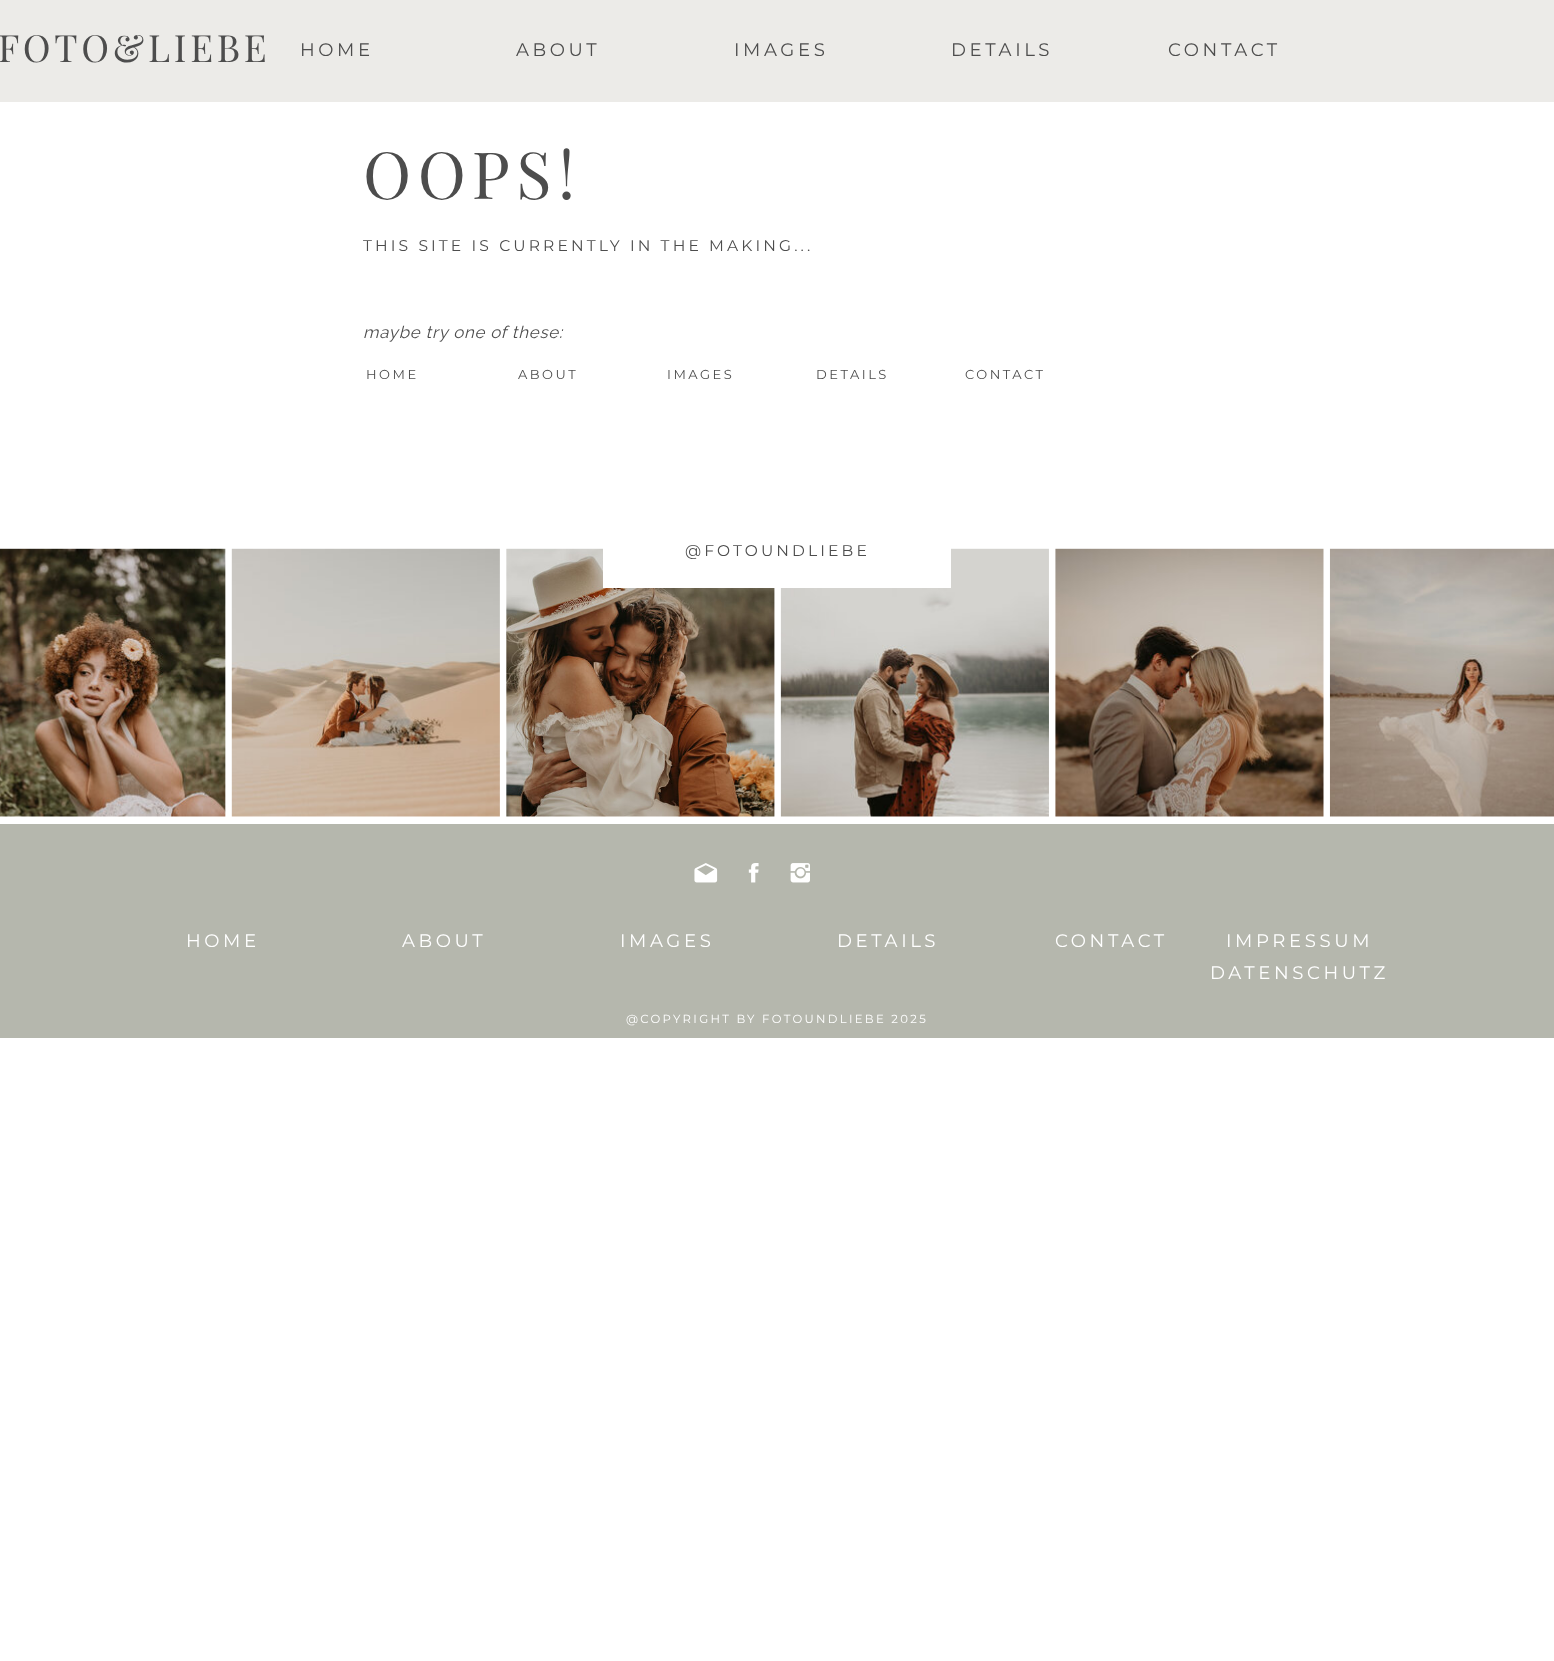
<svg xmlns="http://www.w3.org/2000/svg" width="1554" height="1661">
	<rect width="100%" height="100%" fill="#FFFFFF" />
	<rect x="0" y="0" width="1554" height="102" fill="#ECEBE8" />
	<text x="-2" y="62" font-family="Playfair Display" font-size="37.5" letter-spacing="3.75" fill="#4D4D4D">FOTO&amp;LIEBE</text>
	<g font-family="Montserrat" font-size="18.1" font-weight="100" letter-spacing="3.6" fill="#4D4D4D">
		<text x="300" y="56">HOME</text>
		<text x="516" y="56">ABOUT</text>
		<text x="734" y="56">IMAGES</text>
		<text x="951" y="56">DETAILS</text>
		<text x="1168" y="56">CONTACT</text>
	</g>
	<text x="363" y="199" font-family="Playfair Display" font-size="65" letter-spacing="6.5" fill="#4D4D4D">OOPS!</text>
	<text x="363" y="251" font-family="Montserrat" font-size="15.55" font-weight="100" letter-spacing="3.1" fill="#4D4D4D">THIS SITE IS CURRENTLY IN THE MAKING...</text>
	<text x="363" y="338" font-family="Raleway" font-size="16.75" font-weight="100" font-style="italic" letter-spacing="0.8" fill="#4D4D4D">maybe try one of these:</text>
	<g font-family="Montserrat" font-size="13" font-weight="100" letter-spacing="2.5" fill="#4D4D4D">
		<text x="366" y="379">HOME</text>
		<text x="518" y="379">ABOUT</text>
		<text x="667" y="379">IMAGES</text>
		<text x="816" y="379">DETAILS</text>
		<text x="965" y="379">CONTACT</text>
	</g>
	<image x="506" y="548" width="269" height="269" href="assets/img3.png" />
	<image x="780" y="548" width="269" height="269" href="assets/img4.png" />
	<rect x="603" y="548" width="348" height="40" fill="#FFFFFF" />
	<text x="685" y="556" font-family="Montserrat" font-size="15.55" font-weight="100" letter-spacing="3.1" fill="#4D4D4D">@FOTOUNDLIEBE</text>
	<image x="0" y="548" width="226" height="269" href="assets/img1.png" />
	<image x="231" y="548" width="269" height="269" href="assets/img2.png" />
	<image x="1055" y="548" width="269" height="269" href="assets/img5.png" />
	<image x="1329" y="548" width="225" height="269" href="assets/img6.png" />
	<rect x="0" y="824" width="1554" height="214" fill="#B5B7AD" />
	<image x="694" y="863" width="24" height="20" href="assets/img7.png" />
	<image x="748" y="863" width="11" height="20" href="assets/img8.png" />
	<image x="790" y="863" width="20" height="20" href="assets/img9.png" />
	<g font-family="Montserrat" font-size="18.1" font-weight="100" letter-spacing="3.6" fill="#FFFFFF">
		<text x="186" y="947">HOME</text>
		<text x="402" y="947">ABOUT</text>
		<text x="620" y="947">IMAGES</text>
		<text x="837" y="947">DETAILS</text>
		<text x="1055" y="947">CONTACT</text>
		<text x="1226" y="947">IMPRESSUM</text>
		<text x="1210" y="979">DATENSCHUTZ</text>
	</g>
	<text x="626" y="1023" font-family="Montserrat" font-size="11.65" font-weight="100" letter-spacing="2.3" fill="#FFFFFF">@COPYRIGHT BY FOTOUNDLIEBE 2025</text>
</svg>
